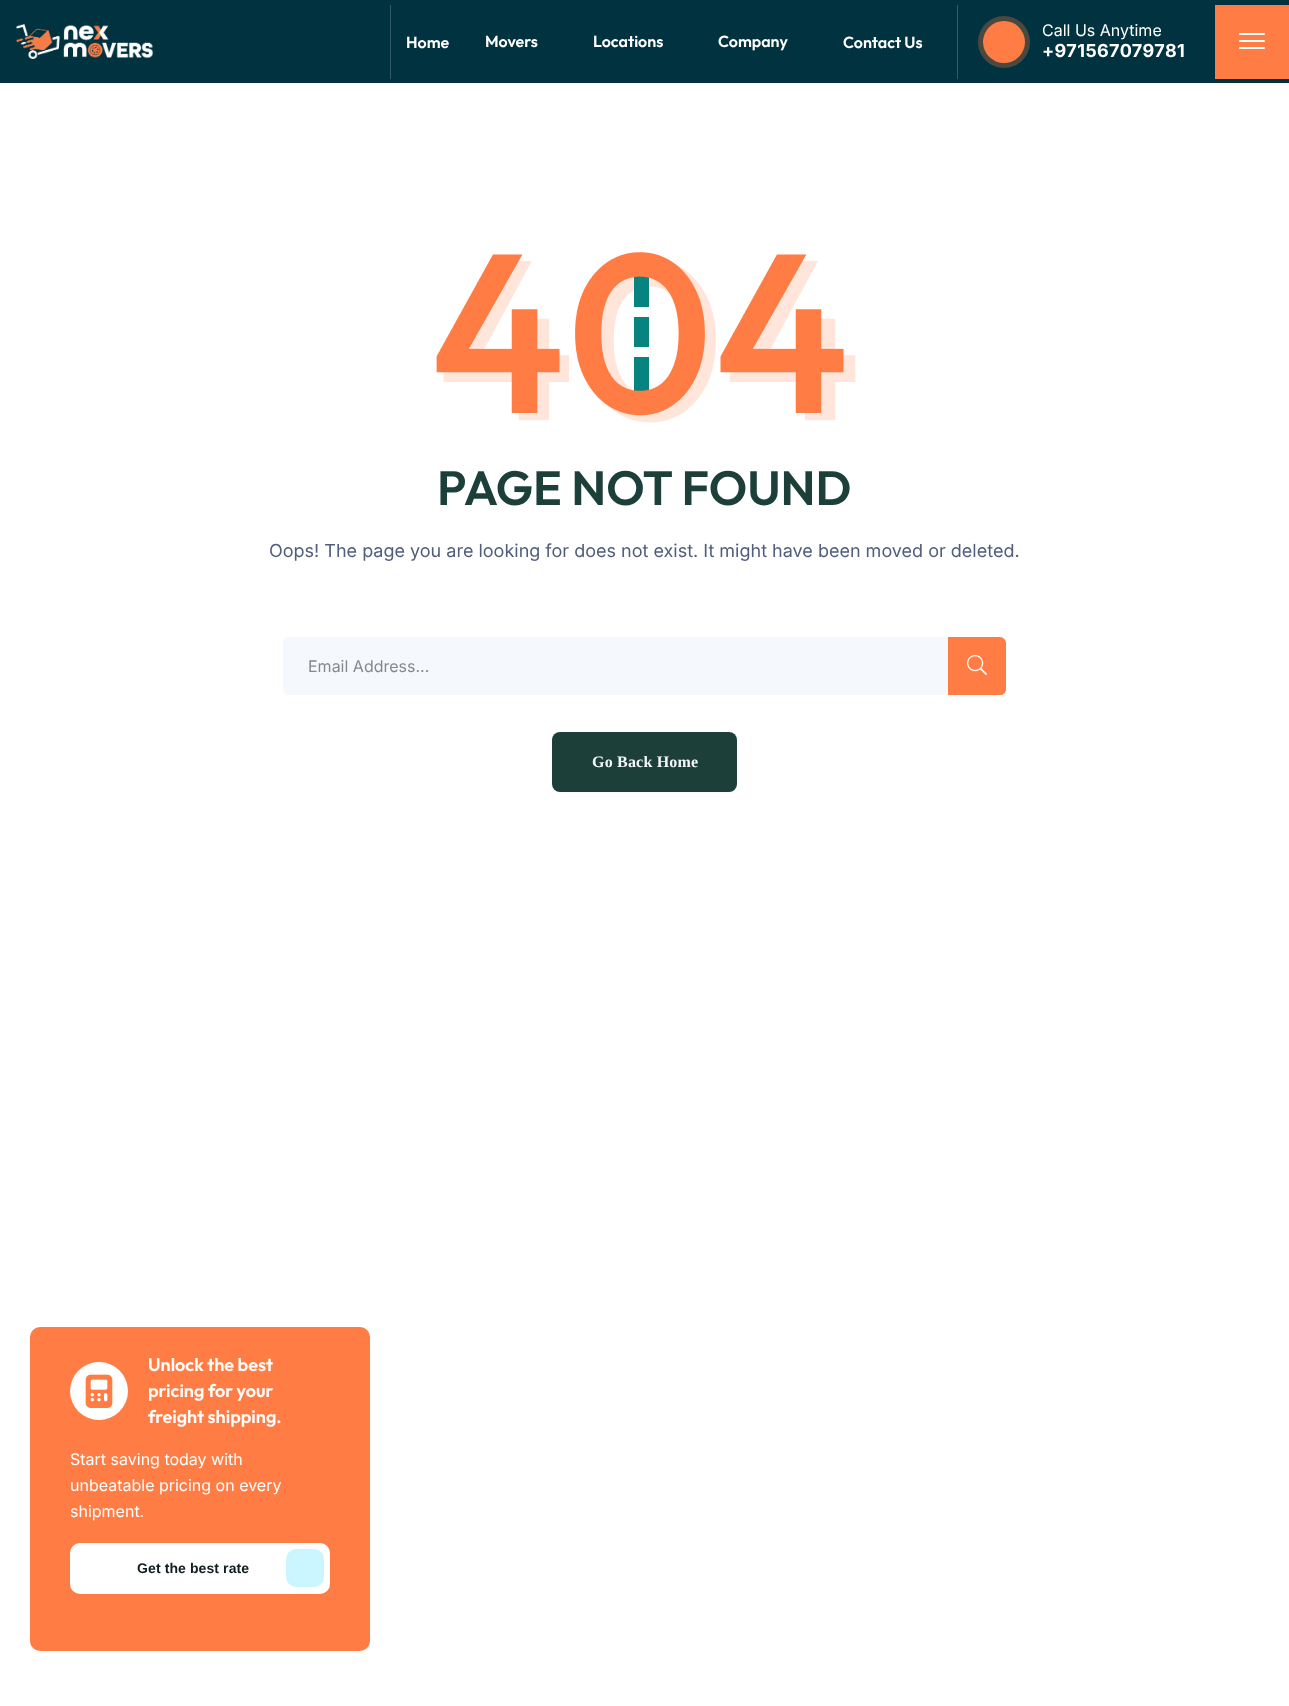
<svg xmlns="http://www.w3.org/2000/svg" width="1289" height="1706">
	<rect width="100%" height="100%" fill="#FFFFFF" />
	<rect x="0" y="0" width="1289" height="83" fill="#01323F" />
	<image x="16" y="24" width="138" height="35" href="assets/img1.png" />
	<rect x="390" y="5" width="1" height="74" fill="#345B65" />
	<g font-family="Outfit" font-size="16" font-weight="600" fill="#FFFFFF">
		<text x="406" y="48">Home</text>
		<text x="485" y="47">Movers</text>
		<text x="593" y="47">Locations</text>
		<text x="718" y="47">Company</text>
		<text x="843" y="48">Contact Us</text>
	</g>
	<rect x="957" y="5" width="1" height="74" fill="#345B65" />
	<circle cx="1004" cy="42" r="26" fill="#4B4840" />
	<circle cx="1004" cy="42" r="21" fill="#FF7D44" />
	<text x="1042" y="36" font-family="Inter" font-size="16" fill="#FFFFFF">Call Us Anytime</text>
	<text x="1042" y="57" font-family="Inter" font-size="18" font-weight="700" letter-spacing="0.4" fill="#FFFFFF">+971567079781</text>
	<rect x="1215" y="5" width="74" height="74" fill="#FF7D44" />
	<rect x="1239" y="33" width="26" height="2" rx="1" fill="#FFFFFF" />
	<rect x="1239" y="40" width="26" height="2" rx="1" fill="#FFFFFF" />
	<rect x="1239" y="47" width="26" height="2" rx="1" fill="#FFFFFF" />
	<image x="436" y="252" width="420" height="171" href="assets/img2.png" />
	<text x="437" y="505" font-family="Outfit" font-size="48" font-weight="600" fill="#1C3F39">PAGE NOT FOUND</text>
	<text x="269" y="557" font-family="Inter" font-size="18" fill="#505D7B">Oops! The page you are looking for does not exist. It might have been moved or deleted.</text>
	<rect x="283" y="637" width="723" height="58" rx="6" fill="#F5F8FD" />
	<text x="308" y="672" font-family="Inter" font-size="16" fill="#888888">Email Address...</text>
	<path d="M1000 637H948V695H1000C1003 695 1006 693 1006 689V643C1006 640 1003 637 1000 637Z" fill="#FF7D44" />
	<image x="967" y="655" width="20" height="20" href="assets/img3.png" />
	<rect x="552" y="732" width="185" height="60" rx="8" fill="#1C3F39" />
	<text x="592" y="767" font-family="Liberation Serif" font-size="16" font-weight="700" letter-spacing="0.2" fill="#F2F8FA">Go Back Home</text>
	<rect x="30" y="1327" width="340" height="324" rx="10" fill="#FF7D44" />
	<circle cx="99" cy="1391" r="29" fill="#FFFFFF" />
	<image x="85" y="1374" width="28" height="34" href="assets/img4.png" />
	<g font-family="Outfit" font-size="18" font-weight="600" fill="#FFFFFF">
		<text x="148" y="1371">Unlock the best</text>
		<text x="148" y="1397">pricing for your</text>
		<text x="148" y="1423">freight shipping.</text>
	</g>
	<g font-family="Inter" font-size="16" fill="#FFFFFF">
		<text x="70" y="1465">Start saving today with</text>
		<text x="70" y="1491">unbeatable pricing on every</text>
		<text x="70" y="1517">shipment.</text>
	</g>
	<rect x="70" y="1543" width="260" height="51" rx="10" fill="#FFFFFF" />
	<text x="137" y="1573" font-family="Liberation Sans" font-size="14" font-weight="700" letter-spacing="0.1" fill="#111E21">Get the best rate</text>
	<rect x="286" y="1549" width="38" height="38" rx="10" fill="#CBF6FF" />
</svg>
